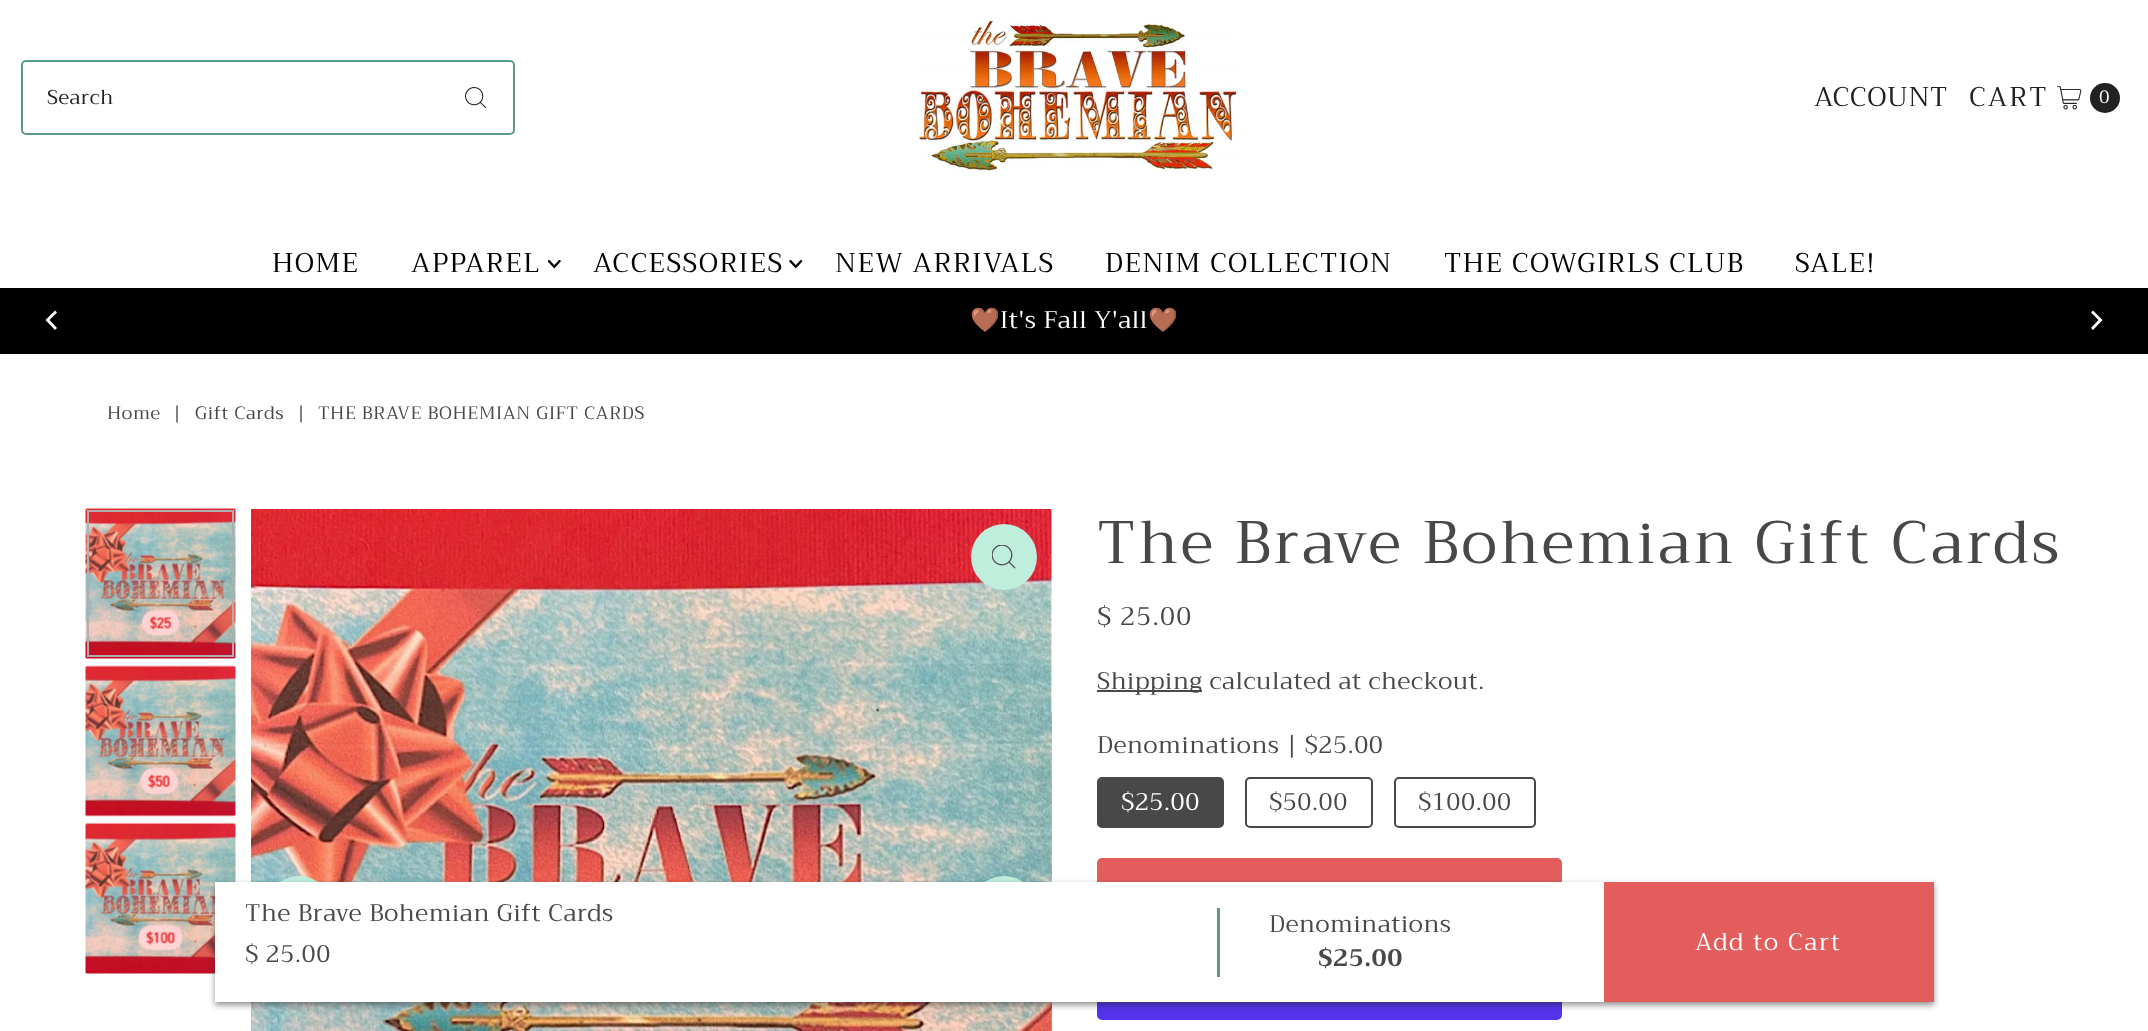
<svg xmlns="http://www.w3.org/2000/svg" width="2148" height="1031">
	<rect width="100%" height="100%" fill="#FFFFFF" />
	<rect x="22" y="61" width="492" height="73" rx="4" fill="none" stroke="#599A8D" stroke-width="2" />
	<text x="47" y="104" font-family="Trirong" font-size="20" letter-spacing="0.5" fill="#222222">Search</text>
	<image x="465" y="87" width="21" height="21" href="assets/img1.png" />
	<image x="917" y="17" width="320" height="156" href="assets/img2.png" />
	<text x="1814" y="106" font-family="Trirong" font-size="27" letter-spacing="0.6" fill="#222222">ACCOUNT</text>
	<text x="1969" y="106" font-family="Trirong" font-size="27" letter-spacing="2" fill="#222222">CART</text>
	<image x="2057" y="86" width="25" height="24" href="assets/img3.png" />
	<circle cx="2105" cy="98" r="15" fill="#222222" />
	<text x="2099" y="103" font-family="Trirong" font-size="18" fill="#FFFFFF">0</text>
	<g font-family="Trirong" font-size="27" letter-spacing="1.4" fill="#000000">
		<text x="272" y="272">HOME</text>
		<text x="411" y="272">APPAREL</text>
	</g>
	<image x="548" y="260" width="13" height="9" href="assets/img4.png" />
	<text x="593" y="272" font-family="Trirong" font-size="27" letter-spacing="1.4" fill="#000000">ACCESSORIES</text>
	<image x="789" y="260" width="14" height="9" href="assets/img5.png" />
	<g font-family="Trirong" font-size="27" letter-spacing="1.4" fill="#000000">
		<text x="835" y="272">NEW ARRIVALS</text>
		<text x="1105" y="272">DENIM COLLECTION</text>
		<text x="1444" y="272">THE COWGIRLS CLUB</text>
		<text x="1795" y="272">SALE!</text>
	</g>
	<rect x="0" y="288" width="2148" height="66" fill="#000000" />
	<path d="M45.5 320L55 330L57 328L49.5 320L57 312.5L55 310.5Z" fill="#FFFFFF" />
	<text x="970" y="328" font-family="Noto Color Emoji" font-size="24" letter-spacing="0.6" fill="#FFFFFF">🤎</text>
	<text x="1000" y="328" font-family="Trirong" font-size="24" letter-spacing="0.6" fill="#FFFFFF">It's Fall Y'all</text>
	<text x="1148" y="328" font-family="Noto Color Emoji" font-size="24" letter-spacing="0.6" fill="#FFFFFF">🤎</text>
	<path d="M2102.5 320L2093 310.5L2091 312.5L2098.5 320L2091 328L2093 330Z" fill="#FFFFFF" />
	<g font-family="Trirong" font-size="18" letter-spacing="0.6" fill="#484848">
		<text x="107" y="419">Home</text>
		<text x="173" y="419">|</text>
		<text x="195" y="419">Gift Cards</text>
		<text x="297" y="419">|</text>
		<text x="318" y="419">THE BRAVE BOHEMIAN GIFT CARDS</text>
	</g>
	<image x="85" y="508" width="151" height="151" href="assets/img6.png" />
	<rect x="88" y="511" width="145" height="145" fill="none" stroke="#AEAEAE" stroke-width="2" />
	<image x="85" y="665" width="151" height="152" href="assets/img7.png" />
	<image x="85" y="823" width="151" height="151" href="assets/img8.png" />
	<image x="251" y="509" width="801" height="522" href="assets/img9.png" />
	<circle cx="1004" cy="557" r="33" fill="#C0EEDD" />
	<image x="992" y="545" width="24" height="24" href="assets/img10.png" />
	<circle cx="299" cy="909" r="33" fill="#C0EEDD" />
	<circle cx="1004" cy="909" r="33" fill="#C0EEDD" />
	<text x="1097" y="563" font-family="Trirong" font-size="60" letter-spacing="3" fill="#484848">The Brave Bohemian Gift Cards</text>
	<text x="1097" y="625" font-family="Trirong" font-size="25.5" letter-spacing="1.25" fill="#484848">$ 25.00</text>
	<rect x="1097" y="690" width="105" height="2" fill="#484848" />
	<g font-family="Trirong" font-size="24" letter-spacing="0.6" fill="#484848">
		<text x="1097" y="689">Shipping calculated at checkout.</text>
		<text x="1097" y="753">Denominations | $25.00</text>
	</g>
	<rect x="1098" y="778" width="125" height="49" rx="4" fill="#484848" stroke="#484848" stroke-width="2" />
	<text x="1121" y="810" font-family="Trirong" font-size="24" letter-spacing="0.6" fill="#FFFFFF">$25.00</text>
	<rect x="1246" y="778" width="126" height="49" rx="4" fill="none" stroke="#484848" stroke-width="2" />
	<text x="1269" y="810" font-family="Trirong" font-size="24" letter-spacing="0.6" fill="#484848">$50.00</text>
	<rect x="1395" y="778" width="140" height="49" rx="4" fill="none" stroke="#484848" stroke-width="2" />
	<text x="1418" y="810" font-family="Trirong" font-size="24" letter-spacing="0.6" fill="#484848">$100.00</text>
	<rect x="1097" y="858" width="465" height="75" rx="5" fill="#E35D5D" />
	<rect x="1097" y="948" width="465" height="72" rx="5" fill="#5433EB" />
	<rect x="215" y="885" width="1719" height="120" fill="#222222" fill-opacity="0.5" filter="blur(3px)" />
	<rect x="215" y="882" width="1389" height="120" fill="#FFFFFF" />
	<g font-family="Trirong" font-size="24" letter-spacing="0.6" fill="#484848">
		<text x="245" y="921">The Brave Bohemian Gift Cards</text>
		<text x="245" y="962">$ 25.00</text>
	</g>
	<rect x="1217" y="908" width="3" height="69" fill="#599A8D" />
	<text x="1269" y="932" font-family="Trirong" font-size="24" letter-spacing="0.6" fill="#484848">Denominations</text>
	<text x="1318" y="966" font-family="Trirong" font-size="24" font-weight="700" letter-spacing="0.6" fill="#484848">$25.00</text>
	<rect x="1604" y="882" width="330" height="120" fill="#E35D5D" />
	<text x="1695" y="950" font-family="Trirong" font-size="24" letter-spacing="1.75" fill="#FFFFFF">Add to Cart</text>
</svg>
